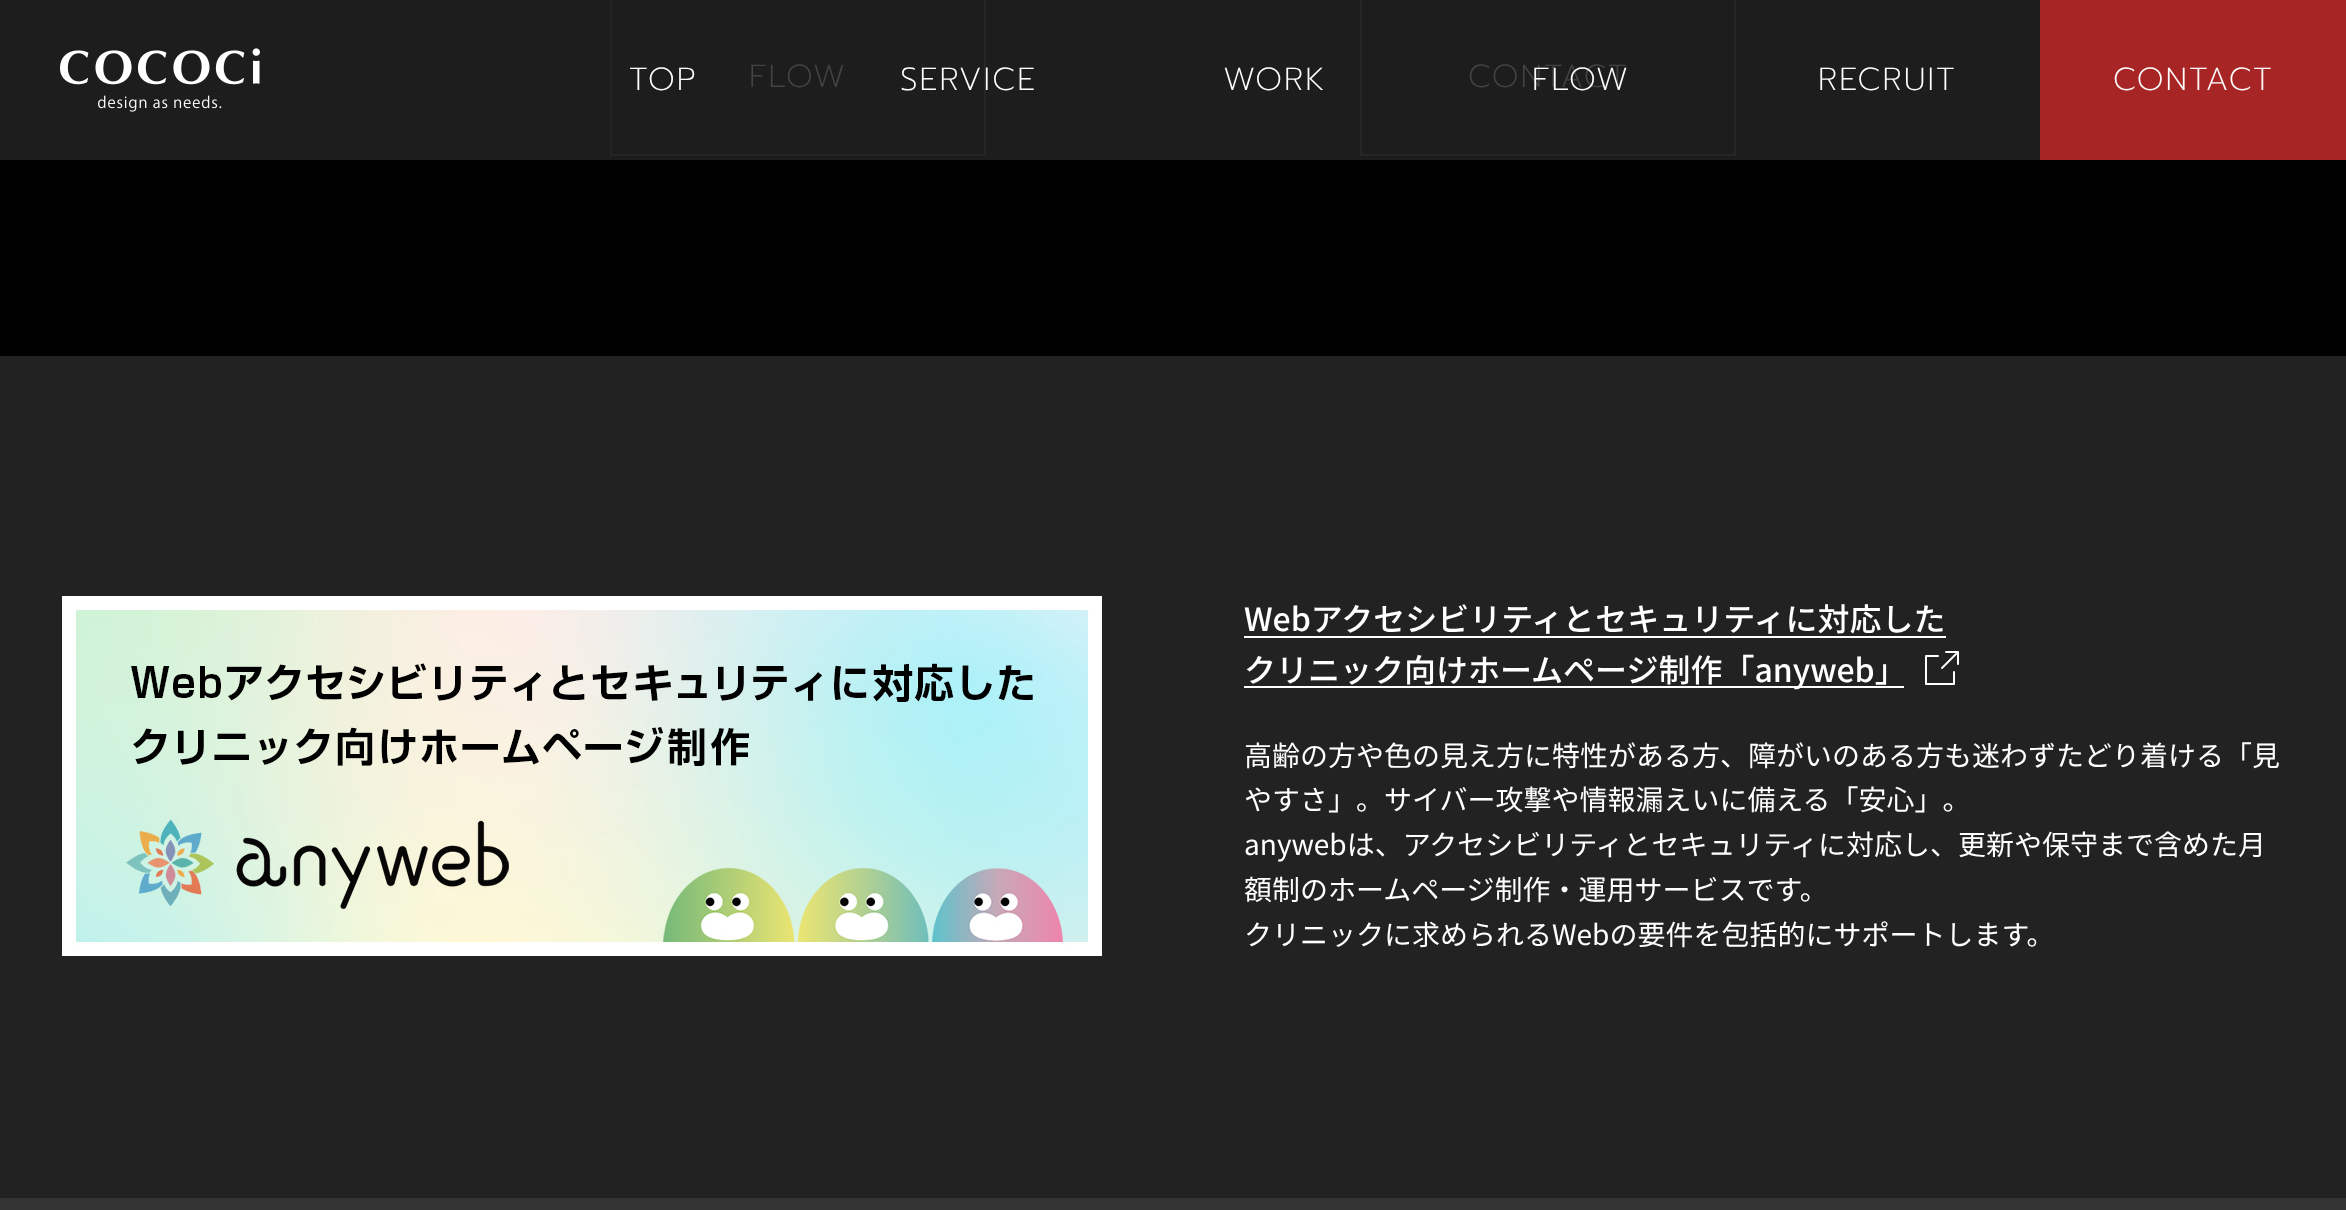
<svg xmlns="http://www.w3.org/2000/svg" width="2346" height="1210">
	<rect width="100%" height="100%" fill="#222222" />
	<rect x="0" y="160" width="2346" height="196" fill="#000000" />
	<rect x="0" y="0" width="2040" height="160" fill="#1D1D1D" />
	<rect x="611" y="-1" width="374" height="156" fill="none" stroke="#252525" stroke-width="2" />
	<text x="749" y="87" font-family="Prompt" font-size="32" font-weight="200" letter-spacing="2" fill="#434343">FLOW</text>
	<rect x="1361" y="-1" width="374" height="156" fill="none" stroke="#252525" stroke-width="2" />
	<text x="1468" y="87" font-family="Prompt" font-size="32" font-weight="200" letter-spacing="2" fill="#434343">CONTACT</text>
	<image x="60" y="48" width="200" height="64" href="assets/img1.png" />
	<g font-family="Prompt" font-size="32" font-weight="200" letter-spacing="2" fill="#FFFFFF">
		<text x="629" y="90">TOP</text>
		<text x="900" y="90">SERVICE</text>
		<text x="1223" y="90">WORK</text>
		<text x="1532" y="90">FLOW</text>
		<text x="1818" y="90">RECRUIT</text>
	</g>
	<rect x="2040" y="0" width="306" height="160" fill="#A72525" />
	<text x="2113" y="90" font-family="Prompt" font-size="32" font-weight="200" letter-spacing="2" fill="#FFFFFF">CONTACT</text>
	<image x="62" y="596" width="1040" height="360" href="assets/img2.png" />
	<text x="1244" y="631" font-family="Noto Sans JP" font-size="32" font-weight="500" fill="#FFFFFF">Webアクセシビリティとセキュリティに対応した</text>
	<rect x="1244" y="636" width="702" height="2" fill="#FFFFFF" />
	<rect x="1244" y="686" width="660" height="2" fill="#FFFFFF" />
	<text x="1244" y="682" font-family="Noto Sans JP" font-size="32" font-weight="500" fill="#FFFFFF">クリニック向けホームページ制作「anyweb」</text>
	<path d="M1938 656H1926V684H1954V672M1942 668L1956 654M1946 652H1958V664" fill="none" stroke="#FFFFFF" stroke-width="2" stroke-linecap="round" stroke-linejoin="round" />
	<g font-family="Noto Sans JP" font-size="28" fill="#FFFFFF">
		<text x="1244" y="766">高齢の方や色の見え方に特性がある方、障がいのある方も迷わずたどり着ける「見</text>
		<text x="1244" y="810">やすさ」。サイバー攻撃や情報漏えいに備える「安心」。</text>
		<text x="1244" y="855">anywebは、アクセシビリティとセキュリティに対応し、更新や保守まで含めた月</text>
		<text x="1244" y="900">額制のホームページ制作・運用サービスです。</text>
		<text x="1244" y="945">クリニックに求められるWebの要件を包括的にサポートします。</text>
	</g>
	<rect x="0" y="1198" width="2346" height="12" fill="#333333" />
</svg>
